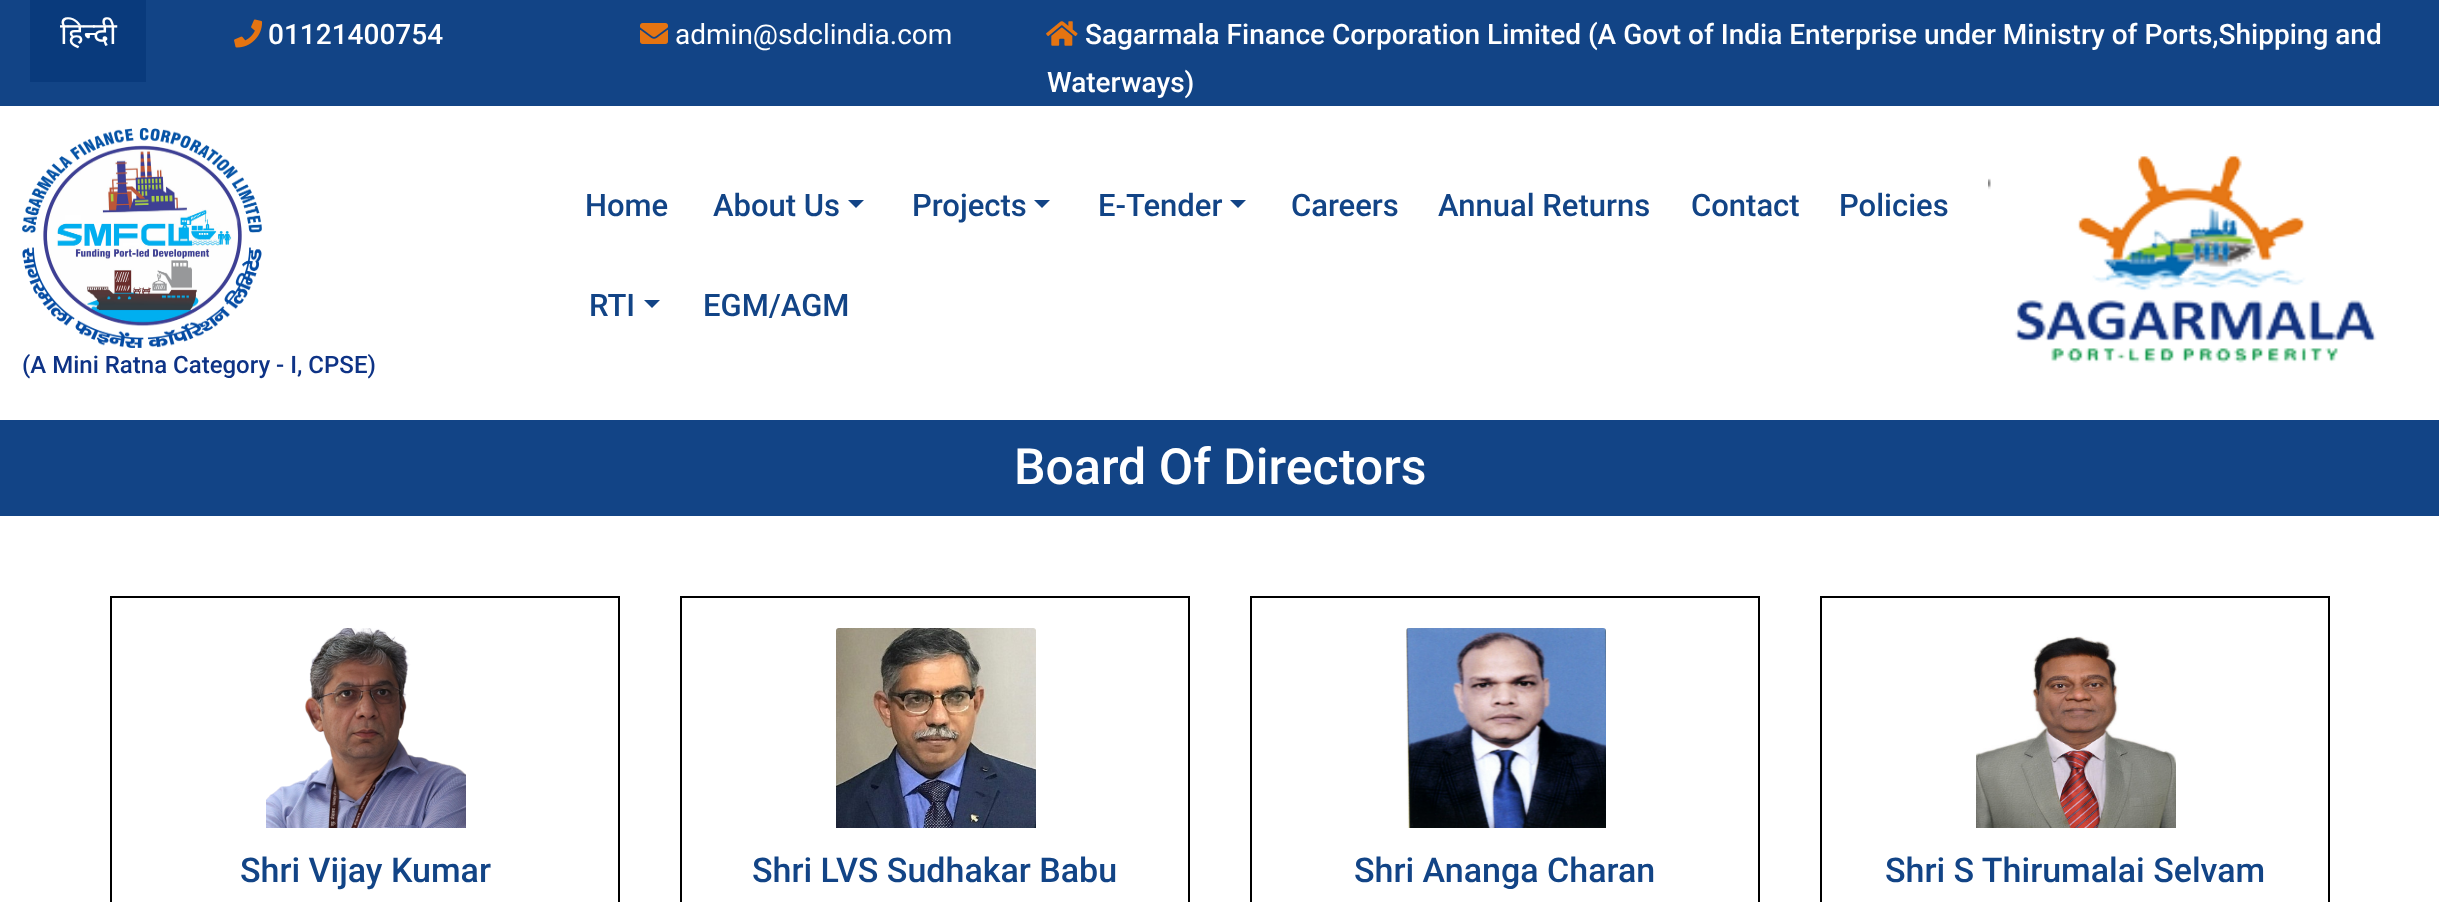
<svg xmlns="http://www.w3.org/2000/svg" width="2439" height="902">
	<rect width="100%" height="100%" fill="#FFFFFF" />
	<rect x="0" y="0" width="2439" height="106" fill="#124486" />
	<rect x="30" y="0" width="116" height="82" fill="#093A7C" />
	<text x="60" y="44" font-family="Noto Sans" font-size="30" fill="#FFFFFF">हिन्दी</text>
	<image x="234" y="19" width="29" height="29" href="assets/img1.png" />
	<text x="268" y="44" font-family="Roboto" font-size="28" font-weight="500" fill="#FFFFFF">01121400754</text>
	<image x="640" y="23" width="28" height="21" href="assets/img2.png" />
	<text x="675" y="44" font-family="Roboto" font-size="28" fill="#FFFFFF">admin@sdclindia.com</text>
	<image x="1046" y="21" width="32" height="25" href="assets/img3.png" />
	<g font-family="Roboto" font-size="28" font-weight="500" fill="#FFFFFF">
		<text x="1085" y="44">Sagarmala Finance Corporation Limited (A Govt of India Enterprise under Ministry of Ports,Shipping and</text>
		<text x="1047" y="92">Waterways)</text>
	</g>
	<g font-family="Roboto" font-size="31" font-weight="500" fill="#124486">
		<text x="585" y="216">Home</text>
		<text x="713" y="216">About Us</text>
	</g>
	<path d="M848 200H864L856 208Z" fill="#124486" />
	<text x="912" y="216" font-family="Roboto" font-size="31" font-weight="500" fill="#124486">Projects</text>
	<path d="M1034 200H1050L1042 208Z" fill="#124486" />
	<text x="1098" y="216" font-family="Roboto" font-size="31" font-weight="500" fill="#124486">E-Tender</text>
	<path d="M1230 200H1246L1238 208Z" fill="#124486" />
	<g font-family="Roboto" font-size="31" font-weight="500" fill="#124486">
		<text x="1291" y="216">Careers</text>
		<text x="1438" y="216">Annual Returns</text>
		<text x="1691" y="216">Contact</text>
		<text x="1839" y="216">Policies</text>
		<text x="589" y="316">RTI</text>
	</g>
	<path d="M644 300H660L652 308Z" fill="#124486" />
	<text x="703" y="316" font-family="Roboto" font-size="31" font-weight="500" fill="#124486">EGM/AGM</text>
	<image x="1988" y="154" width="389" height="209" href="assets/img4.png" />
	<image x="22" y="128" width="240" height="220" href="assets/img5.png" />
	<text x="22" y="373" font-family="Roboto" font-size="24" font-weight="500" fill="#0E3386">(A Mini Ratna Category - I, CPSE)</text>
	<rect x="0" y="420" width="2439" height="96" fill="#124486" />
	<text x="1014" y="484" font-family="Roboto" font-size="50" font-weight="500" fill="#FFFFFF">Board Of Directors</text>
	<rect x="111" y="597" width="508" height="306" fill="none" stroke="#000000" stroke-width="2" />
	<image x="266" y="628" width="200" height="200" href="assets/img6.png" />
	<text x="240" y="882" font-family="Roboto" font-size="34" font-weight="500" fill="#124486">Shri Vijay Kumar</text>
	<rect x="681" y="597" width="508" height="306" fill="none" stroke="#000000" stroke-width="2" />
	<image x="836" y="628" width="200" height="200" href="assets/img7.png" />
	<text x="752" y="882" font-family="Roboto" font-size="34" font-weight="500" fill="#124486">Shri LVS Sudhakar Babu</text>
	<rect x="1251" y="597" width="508" height="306" fill="none" stroke="#000000" stroke-width="2" />
	<image x="1406" y="628" width="200" height="200" href="assets/img8.png" />
	<text x="1354" y="882" font-family="Roboto" font-size="34" font-weight="500" fill="#124486">Shri Ananga Charan</text>
	<rect x="1821" y="597" width="508" height="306" fill="none" stroke="#000000" stroke-width="2" />
	<image x="1976" y="636" width="200" height="192" href="assets/img9.png" />
	<text x="1885" y="882" font-family="Roboto" font-size="34" font-weight="500" fill="#124486">Shri S Thirumalai Selvam</text>
</svg>
